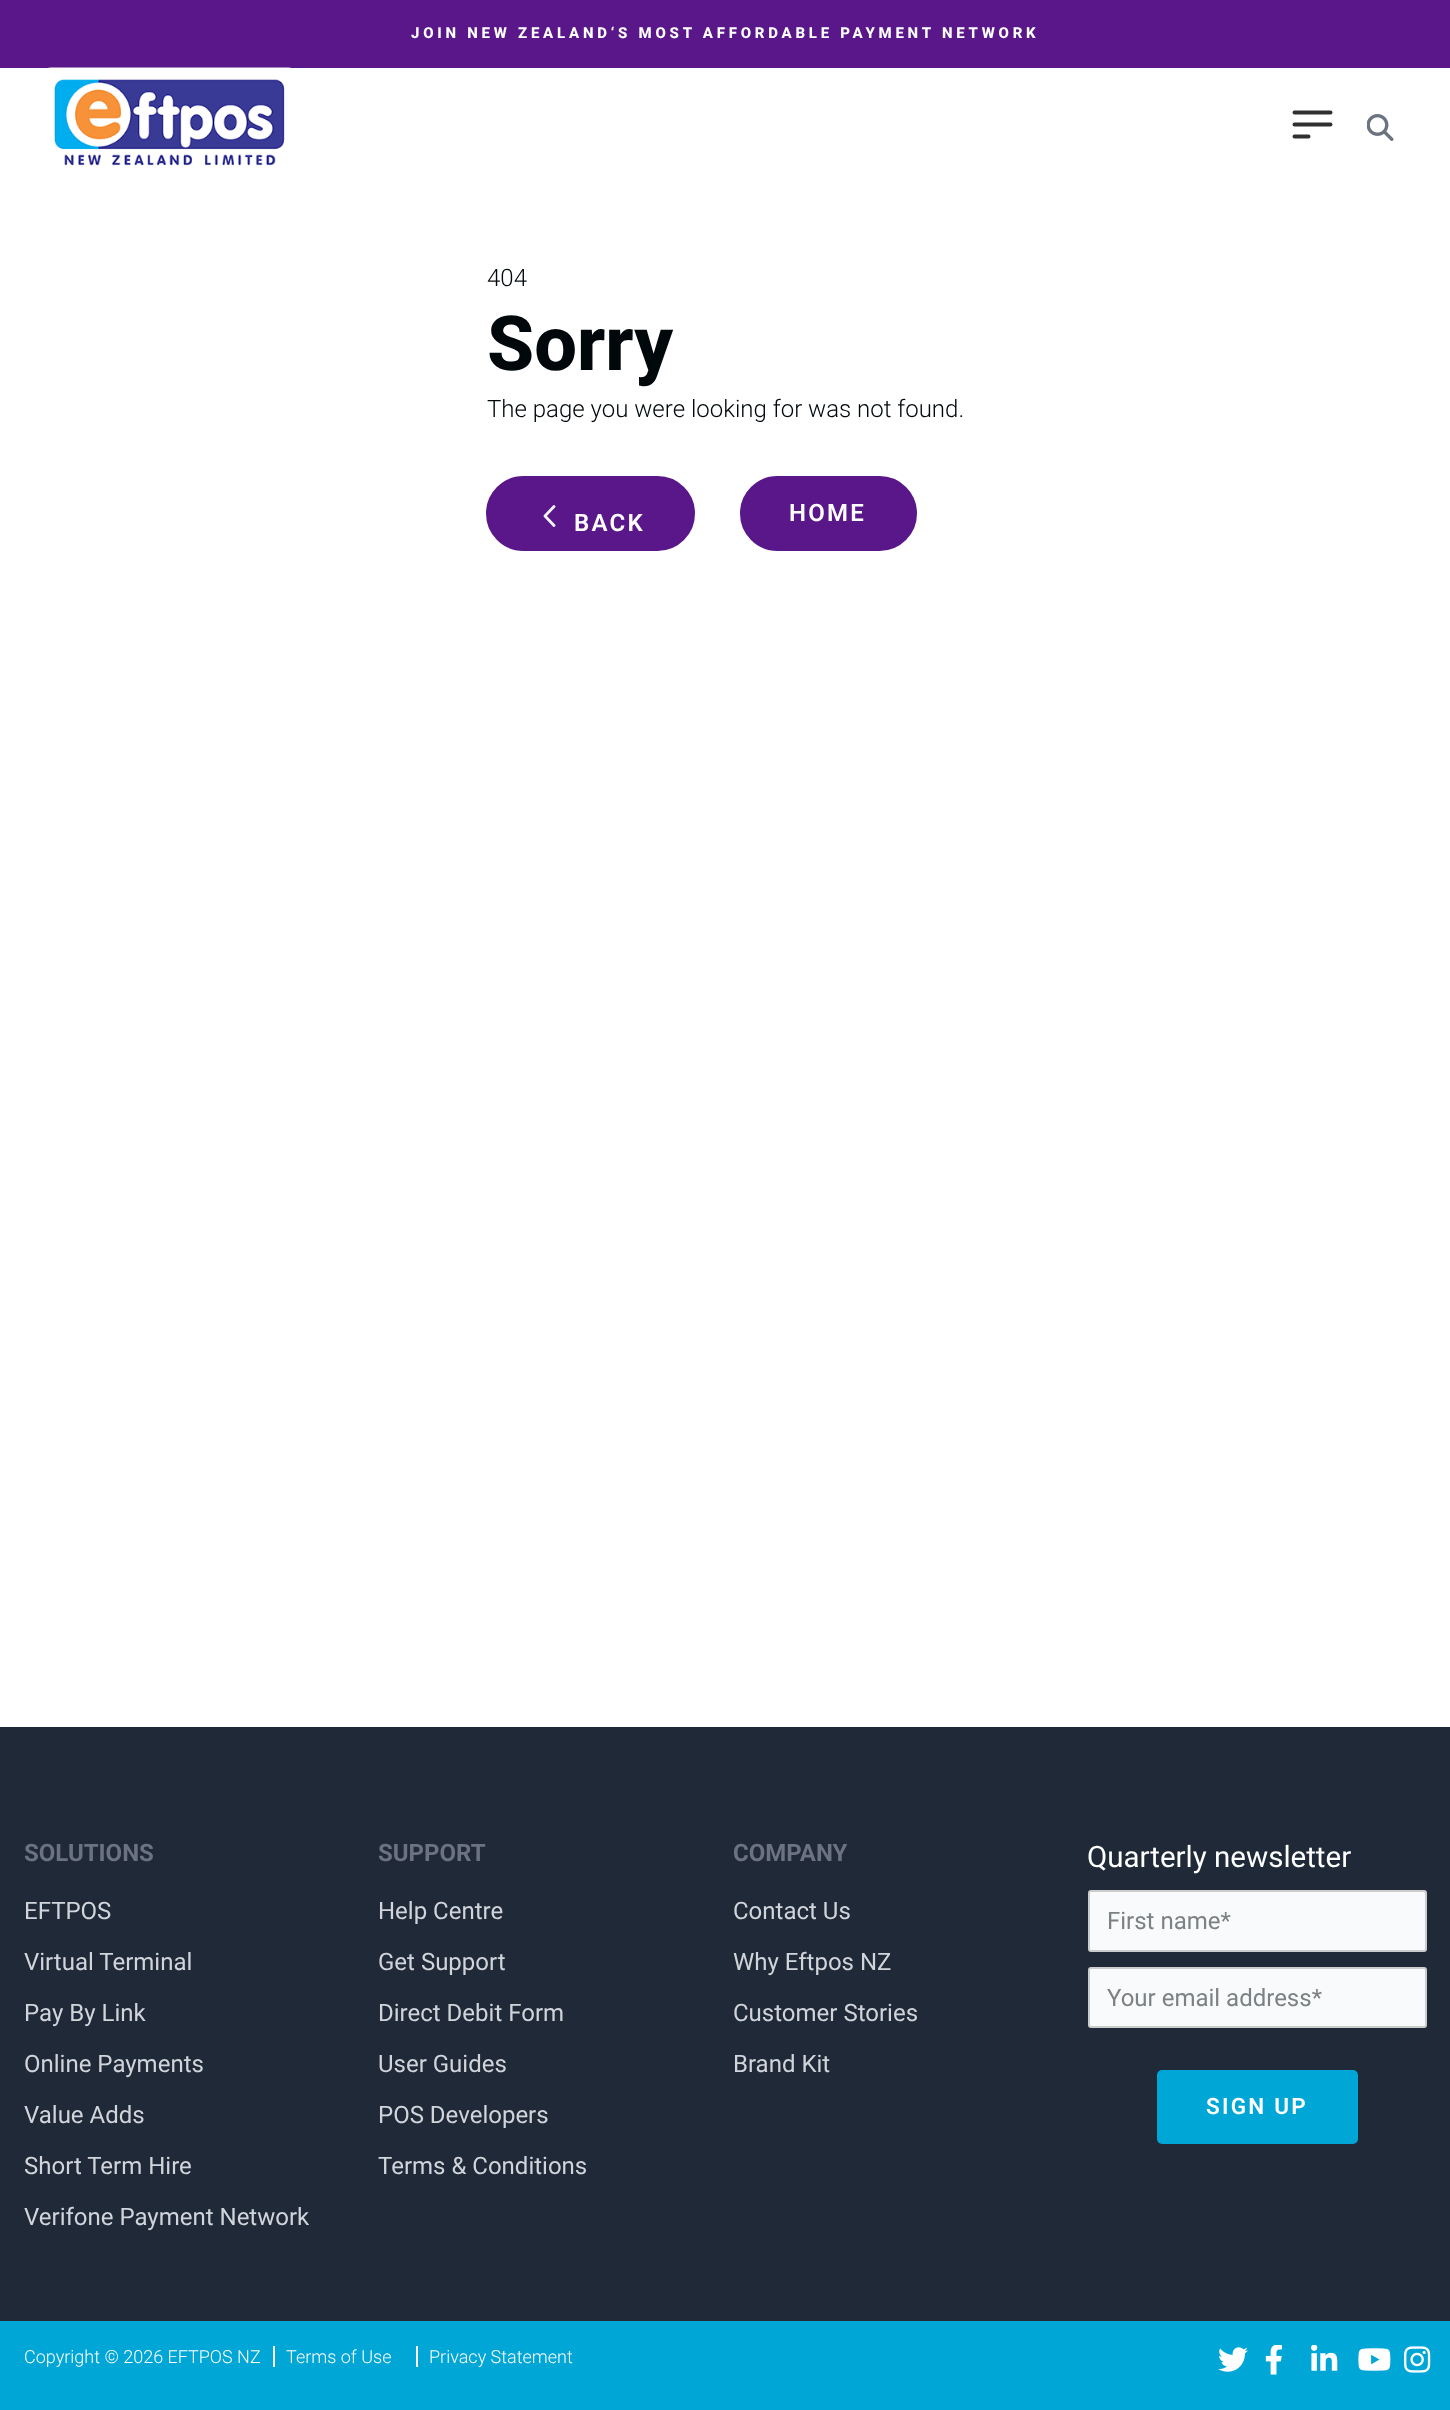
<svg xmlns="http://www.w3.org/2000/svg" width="1450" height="2410">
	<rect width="100%" height="100%" fill="#FFFFFF" />
	<rect x="0" y="0" width="1450" height="68" fill="#59178A" />
	<text x="411" y="38" font-family="Roboto" font-size="15" font-weight="800" letter-spacing="3.75" fill="#FFFFFF">JOIN NEW ZEALAND‘S MOST AFFORDABLE PAYMENT NETWORK</text>
	<image x="47" y="67" width="245" height="99" href="assets/img1.png" />
	<path d="M1294.5 124.5H1330.5M1294.5 112.5H1330.5M1294.5 136.5H1308.5" fill="none" stroke="#303030" stroke-width="4" stroke-linecap="round" stroke-linejoin="round" />
	<image x="1367" y="114" width="27" height="27" href="assets/img2.png" />
	<text x="487" y="286" font-family="Roboto" font-size="24" font-weight="300" fill="#00080B">404</text>
	<text x="487" y="370" font-family="Roboto" font-size="76" font-weight="800" fill="#00080B">Sorry</text>
	<text x="487" y="417" font-family="Roboto" font-size="24" font-weight="300" fill="#00080B">The page you were looking for was not found.</text>
	<rect x="487" y="477" width="207" height="73" rx="36.5" fill="#59178A" stroke="#59178A" stroke-width="2" />
	<path d="M554 525.5L545 516L554 506.5" fill="none" stroke="#F3F4F6" stroke-width="2.8" stroke-linecap="round" stroke-linejoin="round" />
	<text x="574" y="531" font-family="Roboto" font-size="24" font-weight="600" letter-spacing="2.25" fill="#FFFFFF">BACK</text>
	<rect x="741" y="477" width="175" height="73" rx="36.5" fill="#59178A" stroke="#59178A" stroke-width="2" />
	<text x="789" y="521" font-family="Roboto" font-size="24" font-weight="600" letter-spacing="2.25" fill="#FFFFFF">HOME</text>
	<rect x="0" y="1727" width="1450" height="594" fill="#1F2937" />
	<text x="24" y="1861" font-family="Roboto" font-size="24" font-weight="700" fill="#6B7280">SOLUTIONS</text>
	<g font-family="Roboto" font-size="24" fill="#D1D5DB">
		<text x="24" y="1919">EFTPOS</text>
		<text x="24" y="1970">Virtual Terminal</text>
		<text x="24" y="2021">Pay By Link</text>
		<text x="24" y="2072">Online Payments</text>
		<text x="24" y="2123">Value Adds</text>
		<text x="24" y="2174">Short Term Hire</text>
		<text x="24" y="2225">Verifone Payment Network</text>
	</g>
	<text x="378" y="1861" font-family="Roboto" font-size="24" font-weight="700" fill="#6B7280">SUPPORT</text>
	<g font-family="Roboto" font-size="24" fill="#D1D5DB">
		<text x="378" y="1919">Help Centre</text>
		<text x="378" y="1970">Get Support</text>
		<text x="378" y="2021">Direct Debit Form</text>
		<text x="378" y="2072">User Guides</text>
		<text x="378" y="2123">POS Developers</text>
		<text x="378" y="2174">Terms &amp; Conditions</text>
	</g>
	<text x="733" y="1861" font-family="Roboto" font-size="24" font-weight="700" fill="#6B7280">COMPANY</text>
	<g font-family="Roboto" font-size="24" fill="#D1D5DB">
		<text x="733" y="1919">Contact Us</text>
		<text x="733" y="1970">Why Eftpos NZ</text>
		<text x="733" y="2021">Customer Stories</text>
		<text x="733" y="2072">Brand Kit</text>
	</g>
	<text x="1087" y="1867" font-family="Roboto" font-size="29.5" fill="#FFFFFF">Quarterly newsletter</text>
	<rect x="1089" y="1891" width="337" height="60" rx="2" fill="#F9FAFB" stroke="#CCCCCC" stroke-width="2" />
	<text x="1107" y="1929" font-family="Roboto" font-size="24" fill="#7D8183">First name*</text>
	<rect x="1089" y="1968" width="337" height="59" rx="2" fill="#F9FAFB" stroke="#CCCCCC" stroke-width="2" />
	<text x="1107" y="2006" font-family="Roboto" font-size="24" fill="#7D8183">Your email address*</text>
	<rect x="1158" y="2071" width="199" height="72" rx="4" fill="#00A6D6" stroke="#00A6D6" stroke-width="2" />
	<text x="1206" y="2114" font-family="Roboto" font-size="22.5" font-weight="600" letter-spacing="2.25" fill="#FFFFFF">SIGN UP</text>
	<rect x="0" y="2321" width="1450" height="89" fill="#00A6D6" />
	<g font-family="Roboto" font-size="18" font-weight="300" fill="#FFFFFF">
		<text x="24" y="2363">Copyright © 2026 EFTPOS NZ</text>
		<text x="286" y="2363">Terms of Use</text>
	</g>
	<rect x="273" y="2346" width="2" height="21" fill="#FFFFFF" />
	<text x="429" y="2363" font-family="Roboto" font-size="18" font-weight="300" fill="#FFFFFF">Privacy Statement</text>
	<rect x="416" y="2346" width="2" height="21" fill="#FFFFFF" />
	<image x="1218" y="2347" width="30" height="25" href="assets/img3.png" />
	<image x="1265" y="2345" width="17" height="30" href="assets/img4.png" />
	<image x="1311" y="2345" width="27" height="26" href="assets/img5.png" />
	<image x="1358" y="2348" width="33" height="23" href="assets/img6.png" />
	<image x="1404" y="2346" width="27" height="27" href="assets/img7.png" />
</svg>
